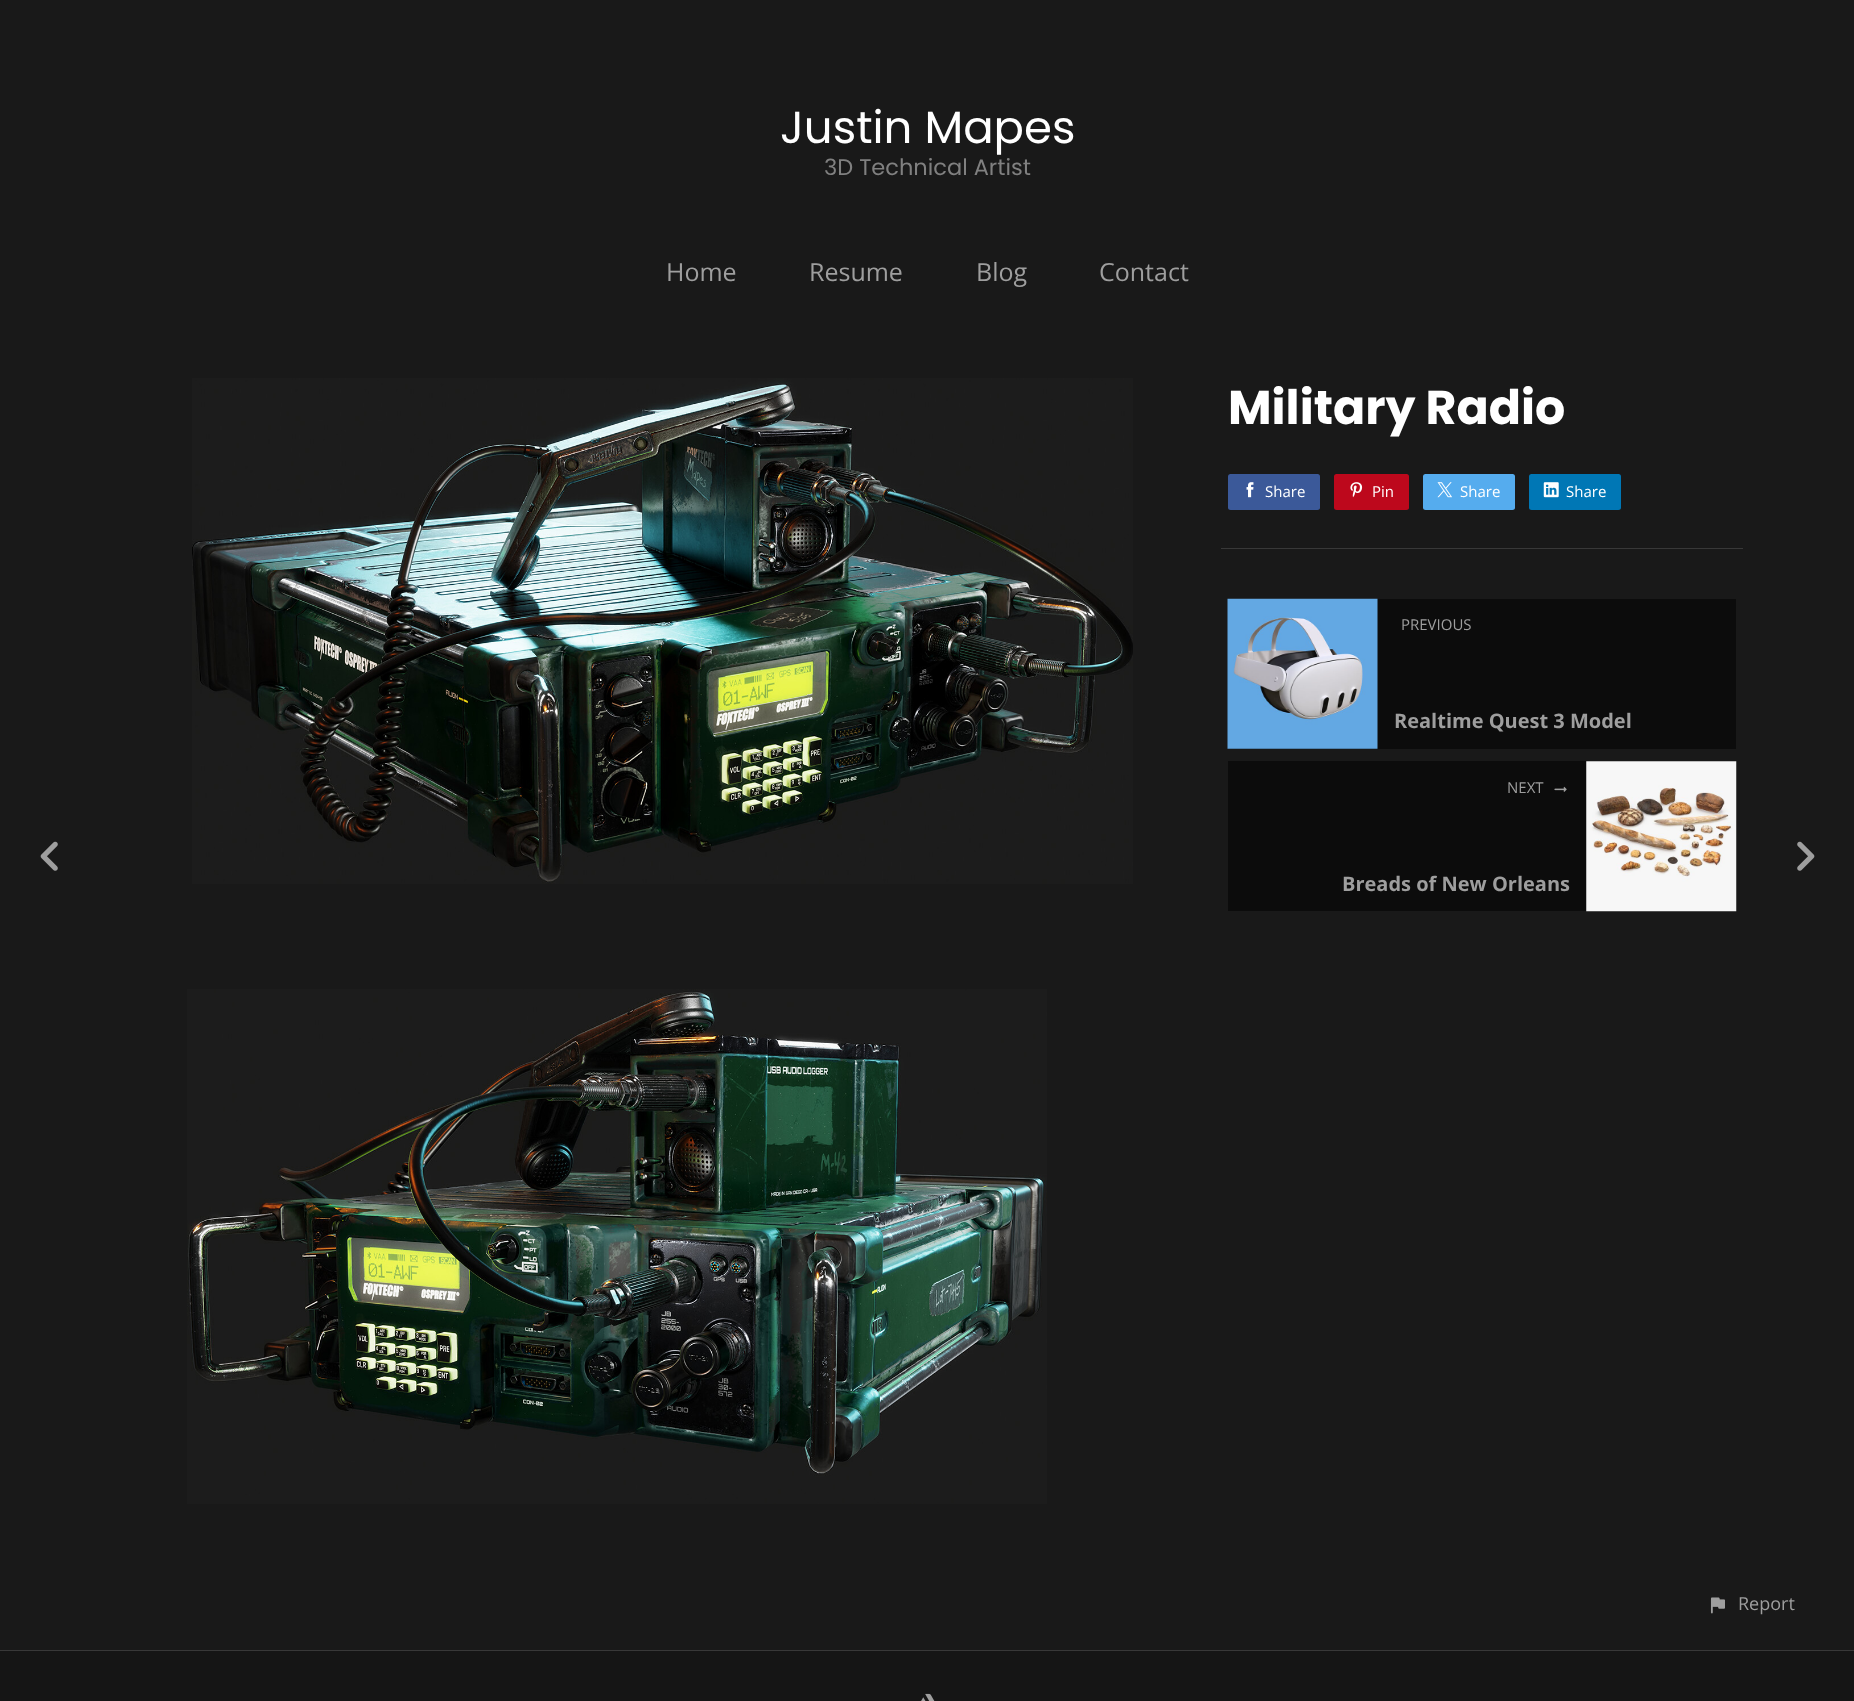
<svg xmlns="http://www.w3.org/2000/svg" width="1854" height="1701">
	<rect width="100%" height="100%" fill="#191919" />
	<text x="780" y="143" font-family="Poppins" font-size="45" fill="#FFFFFF">Justin Mapes</text>
	<text x="824" y="175" font-family="Poppins" font-size="22.5" fill="#808080">3D Technical Artist</text>
	<g font-family="Open Sans" font-size="25" fill="#9E9E9E">
		<text x="666" y="281">Home</text>
		<text x="809" y="281">Resume</text>
		<text x="976" y="281">Blog</text>
		<text x="1099" y="281">Contact</text>
	</g>
	<image x="40" y="841" width="18" height="30" href="assets/img1.png" />
	<image x="192" y="378" width="941" height="506" href="assets/img2.png" />
	<image x="187" y="989" width="860" height="515" href="assets/img3.png" />
	<text x="1228" y="424" font-family="Poppins" font-size="47.5" font-weight="700" fill="#FFFFFF">Military Radio</text>
	<rect x="1228" y="474" width="92" height="36" rx="2.5" fill="#3B5999" />
	<image x="1246" y="482" width="8" height="16" href="assets/img4.png" />
	<text x="1265" y="497" font-family="Open Sans" font-size="15" fill="#FFFFFF">Share</text>
	<rect x="1334" y="474" width="75" height="36" rx="2.5" fill="#BD081C" />
	<image x="1350" y="482" width="13" height="16" href="assets/img5.png" />
	<text x="1372" y="497" font-family="Open Sans" font-size="15" fill="#FFFFFF">Pin</text>
	<rect x="1423" y="474" width="92" height="36" rx="2.5" fill="#55ACEE" />
	<image x="1437" y="482" width="15" height="16" href="assets/img6.png" />
	<text x="1460" y="497" font-family="Open Sans" font-size="15" fill="#FFFFFF">Share</text>
	<rect x="1529" y="474" width="92" height="36" rx="2.5" fill="#0077B5" />
	<image x="1543" y="482" width="16" height="16" href="assets/img7.png" />
	<text x="1566" y="497" font-family="Open Sans" font-size="15" fill="#FFFFFF">Share</text>
	<rect x="1221" y="548" width="522" height="1" fill="#383838" />
	<rect x="1228" y="599" width="508" height="150" fill="#0C0C0C" />
	<image x="1227" y="598" width="151" height="151" href="assets/img8.png" />
	<text x="1401" y="630" font-family="Open Sans" font-size="15" fill="#9E9E9E">PREVIOUS</text>
	<text x="1394" y="728" font-family="Open Sans" font-size="20" font-weight="700" fill="#9E9E9E">Realtime Quest 3 Model</text>
	<rect x="1228" y="761" width="508" height="150" fill="#0C0C0C" />
	<text x="1507" y="793" font-family="Open Sans" font-size="15" fill="#9E9E9E">NEXT</text>
	<image x="1554" y="786" width="13" height="6" href="assets/img9.png" />
	<text x="1342" y="891" font-family="Open Sans" font-size="20" font-weight="700" fill="#9E9E9E">Breads of New Orleans</text>
	<image x="1586" y="761" width="151" height="151" href="assets/img10.png" />
	<image x="1797" y="841" width="18" height="30" href="assets/img11.png" />
	<image x="1710" y="1597" width="15" height="17" href="assets/img12.png" />
	<text x="1738" y="1610" font-family="Open Sans" font-size="18" fill="#9E9E9E">Report</text>
	<rect x="0" y="1651" width="1854" height="50" fill="#151515" />
	<rect x="0" y="1650" width="1854" height="1" fill="#383838" />
	<image x="921" y="1693" width="14" height="8" href="assets/img13.png" />
</svg>
